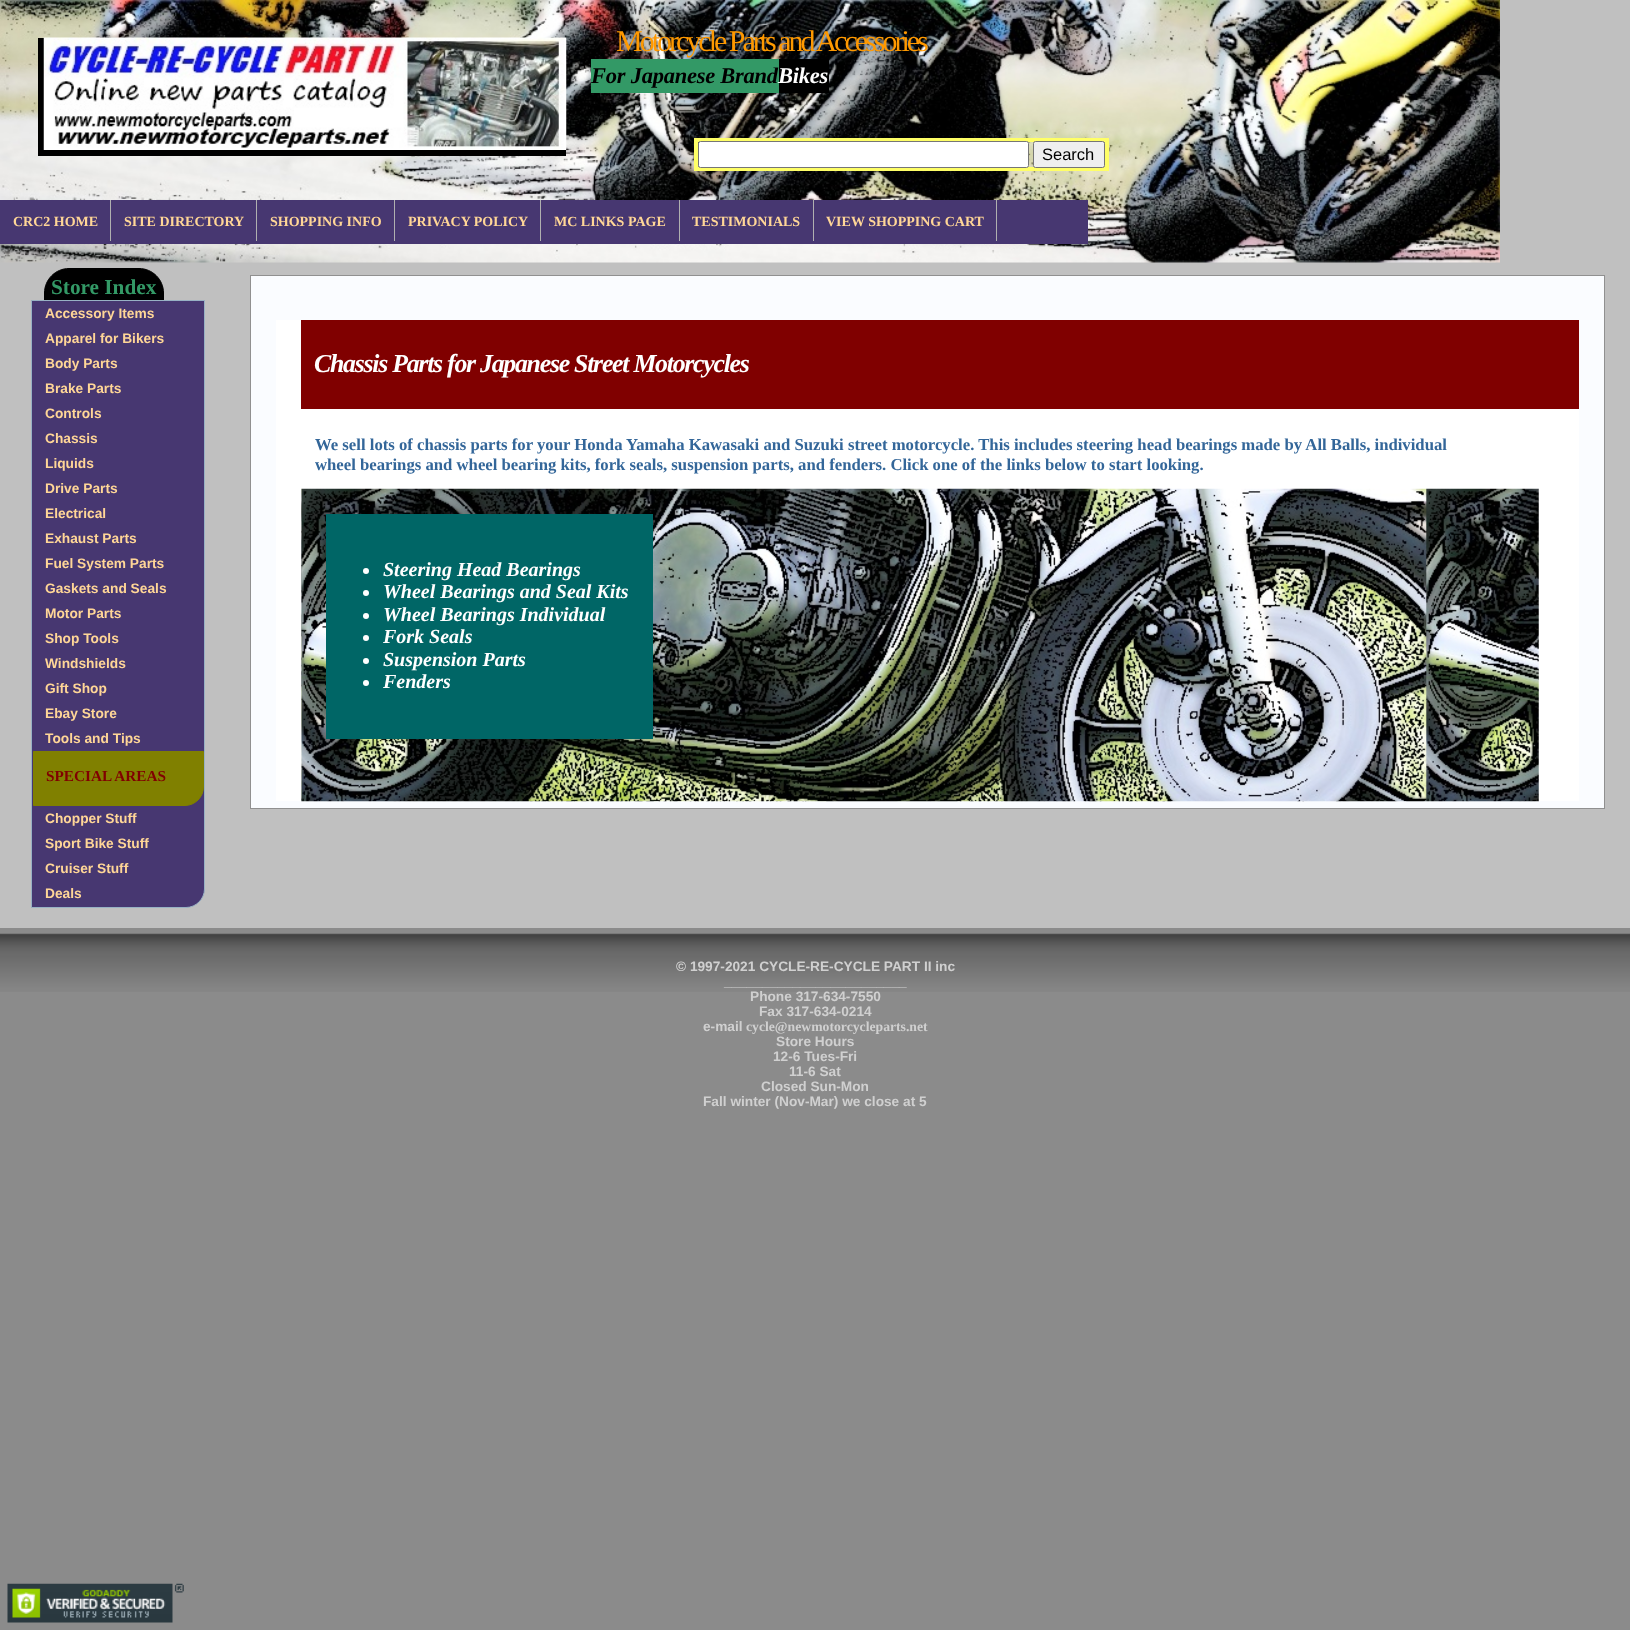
<svg xmlns="http://www.w3.org/2000/svg" width="1630" height="1630">
	<rect width="100%" height="100%" fill="#8B8B8B" />
	<rect x="0" y="0" width="1630" height="928" fill="#C0C0C0" />
	<image x="0" y="0" width="1500" height="263" href="assets/img1.png" />
	<rect x="38" y="150" width="528" height="6" fill="#000000" />
	<rect x="38" y="38" width="6" height="118" fill="#000000" />
	<image x="43" y="37" width="524" height="113" href="assets/img2.png" />
	<text x="616" y="51" font-family="Liberation Serif" font-size="30" letter-spacing="-3" fill="#FF9900">Motorcycle Parts and Accessories</text>
	<rect x="591" y="59" width="188" height="34" fill="#339966" />
	<text x="591" y="83" font-family="Liberation Serif" font-size="22.5" font-weight="700" font-style="italic" letter-spacing="-0.25" fill="#000000">For Japanese Brand</text>
	<rect x="779" y="59" width="50" height="34" fill="#000000" />
	<text x="778" y="83" font-family="Liberation Serif" font-size="22.5" font-weight="700" font-style="italic" letter-spacing="-0.25" fill="#FFFFFF">Bikes</text>
	<rect x="696" y="140" width="411" height="29" fill="none" stroke="#FFFF66" stroke-width="4" />
	<rect x="698.5" y="141.5" width="330" height="26" rx="2" fill="#FFFFFF" stroke="#767676" />
	<rect x="1033.5" y="141.5" width="71" height="26" rx="2" fill="#EFEFEF" stroke="#767676" />
	<text x="1042" y="160" font-family="Liberation Sans" font-size="16.5" fill="#000000">Search</text>
	<rect x="0" y="200" width="1088" height="44" fill="#473771" />
	<rect x="110" y="200" width="1" height="41" fill="#B0B0B0" />
	<text x="13" y="226" font-family="Liberation Serif" font-size="14" font-weight="700" fill="#FFD697">CRC2 HOME</text>
	<rect x="256" y="200" width="1" height="41" fill="#B0B0B0" />
	<text x="124" y="226" font-family="Liberation Serif" font-size="14" font-weight="700" fill="#FFD697">SITE DIRECTORY</text>
	<rect x="394" y="200" width="1" height="41" fill="#B0B0B0" />
	<text x="270" y="226" font-family="Liberation Serif" font-size="14" font-weight="700" fill="#FFD697">SHOPPING INFO</text>
	<rect x="540" y="200" width="1" height="41" fill="#B0B0B0" />
	<text x="408" y="226" font-family="Liberation Serif" font-size="14" font-weight="700" fill="#FFD697">PRIVACY POLICY</text>
	<rect x="679" y="200" width="1" height="41" fill="#B0B0B0" />
	<text x="554" y="226" font-family="Liberation Serif" font-size="14" font-weight="700" fill="#FFD697">MC LINKS PAGE</text>
	<rect x="813" y="200" width="1" height="41" fill="#B0B0B0" />
	<text x="692" y="226" font-family="Liberation Serif" font-size="14" font-weight="700" fill="#FFD697">TESTIMONIALS</text>
	<rect x="996" y="200" width="1" height="41" fill="#B0B0B0" />
	<text x="826" y="226" font-family="Liberation Serif" font-size="14" font-weight="700" fill="#FFD697">VIEW SHOPPING CART</text>
	<path d="M69 268.5H139C152.5 268.5 163.5 279.5 163.5 293V305.5H44.5V293C44.5 279.5 55.5 268.5 69 268.5Z" fill="#000000" stroke="#000000" />
	<text x="51" y="294" font-family="Liberation Serif" font-size="21.25" font-weight="700" fill="#339966">Store Index</text>
	<path d="M31.5 300.5H204.5V889C204.5 899 196 907.5 186 907.5H31.5Z" fill="#473771" stroke="#98B1C4" />
	<g font-family="Liberation Sans" font-size="13.75" font-weight="700" fill="#FFD697">
		<text x="45" y="318">Accessory Items</text>
		<text x="45" y="343">Apparel for Bikers</text>
		<text x="45" y="368">Body Parts</text>
		<text x="45" y="393">Brake Parts</text>
		<text x="45" y="418">Controls</text>
		<text x="45" y="443">Chassis</text>
		<text x="45" y="468">Liquids</text>
		<text x="45" y="493">Drive Parts</text>
		<text x="45" y="518">Electrical</text>
		<text x="45" y="543">Exhaust Parts</text>
		<text x="45" y="568">Fuel System Parts</text>
		<text x="45" y="593">Gaskets and Seals</text>
		<text x="45" y="618">Motor Parts</text>
		<text x="45" y="643">Shop Tools</text>
		<text x="45" y="668">Windshields</text>
		<text x="45" y="693">Gift Shop</text>
		<text x="45" y="718">Ebay Store</text>
		<text x="45" y="743">Tools and Tips</text>
	</g>
	<path d="M33.5 751.5H203.5V787C203.5 797 195 805.5 185 805.5H33.5Z" fill="#808000" stroke="#808000" />
	<text x="46" y="781" font-family="Liberation Serif" font-size="15.25" font-weight="700" fill="#800000">SPECIAL AREAS</text>
	<g font-family="Liberation Sans" font-size="13.75" font-weight="700" fill="#FFD697">
		<text x="45" y="823">Chopper Stuff</text>
		<text x="45" y="848">Sport Bike Stuff</text>
		<text x="45" y="873">Cruiser Stuff</text>
		<text x="45" y="898">Deals</text>
	</g>
	<rect x="250.5" y="275.5" width="1354" height="533" fill="#FAFCFF" stroke="#909090" />
	<rect x="276" y="320" width="1303" height="481" fill="#FFFFFF" />
	<rect x="301" y="320" width="1278" height="89" fill="#800000" />
	<text x="314" y="372" font-family="Liberation Serif" font-size="25.8" font-weight="700" font-style="italic" letter-spacing="-1.25" fill="#FFFFFF">Chassis Parts for Japanese Street Motorcycles</text>
	<g font-family="Liberation Serif" font-size="16.72" font-weight="700" fill="#336699">
		<text x="315" y="450">We sell lots of chassis parts for your Honda Yamaha Kawasaki and Suzuki street motorcycle. This includes steering head bearings made by All Balls, individual</text>
		<text x="315" y="470">wheel bearings and wheel bearing kits, fork seals, suspension parts, and fenders. Click one of the links below to start looking.</text>
	</g>
	<image x="301" y="488" width="1238" height="314" href="assets/img3.png" />
	<rect x="326" y="514" width="327" height="225" fill="#006666" />
	<circle cx="366" cy="571" r="3" fill="#FFFFFF" />
	<text x="383" y="576" font-family="Liberation Serif" font-size="20" font-weight="700" font-style="italic" fill="#FFFFFF">Steering Head Bearings</text>
	<circle cx="366" cy="593" r="3" fill="#FFFFFF" />
	<text x="383" y="598" font-family="Liberation Serif" font-size="20" font-weight="700" font-style="italic" fill="#FFFFFF">Wheel Bearings and Seal Kits</text>
	<circle cx="366" cy="616" r="3" fill="#FFFFFF" />
	<text x="383" y="621" font-family="Liberation Serif" font-size="20" font-weight="700" font-style="italic" fill="#FFFFFF">Wheel Bearings Individual</text>
	<circle cx="366" cy="638" r="3" fill="#FFFFFF" />
	<text x="383" y="643" font-family="Liberation Serif" font-size="20" font-weight="700" font-style="italic" fill="#FFFFFF">Fork Seals</text>
	<circle cx="366" cy="661" r="3" fill="#FFFFFF" />
	<text x="383" y="666" font-family="Liberation Serif" font-size="20" font-weight="700" font-style="italic" fill="#FFFFFF">Suspension Parts</text>
	<circle cx="366" cy="683" r="3" fill="#FFFFFF" />
	<text x="383" y="688" font-family="Liberation Serif" font-size="20" font-weight="700" font-style="italic" fill="#FFFFFF">Fenders</text>
	<image x="0" y="933" width="1630" height="59" href="assets/img4.png" />
	<g font-family="Liberation Sans" font-size="13.7" font-weight="700" fill="#D0D0D0">
		<text x="676" y="971">© 1997-2021 CYCLE-RE-CYCLE PART II inc</text>
		<text x="724" y="986">________________________</text>
		<text x="750" y="1001">Phone 317-634-7550</text>
		<text x="759" y="1016">Fax 317-634-0214</text>
		<text x="703" y="1031">e-mail</text>
	</g>
	<text x="746" y="1031" font-family="Liberation Serif" font-size="13.7" font-weight="700" fill="#D0D0D0">cycle@newmotorcycleparts.net</text>
	<g font-family="Liberation Sans" font-size="13.7" font-weight="700" fill="#D0D0D0">
		<text x="776" y="1046">Store Hours</text>
		<text x="773" y="1061">12-6 Tues-Fri</text>
		<text x="789" y="1076">11-6 Sat</text>
		<text x="761" y="1091">Closed Sun-Mon</text>
		<text x="703" y="1106">Fall winter (Nov-Mar) we close at 5</text>
	</g>
	<image x="7" y="1583" width="177" height="40" href="assets/img5.png" />
</svg>
